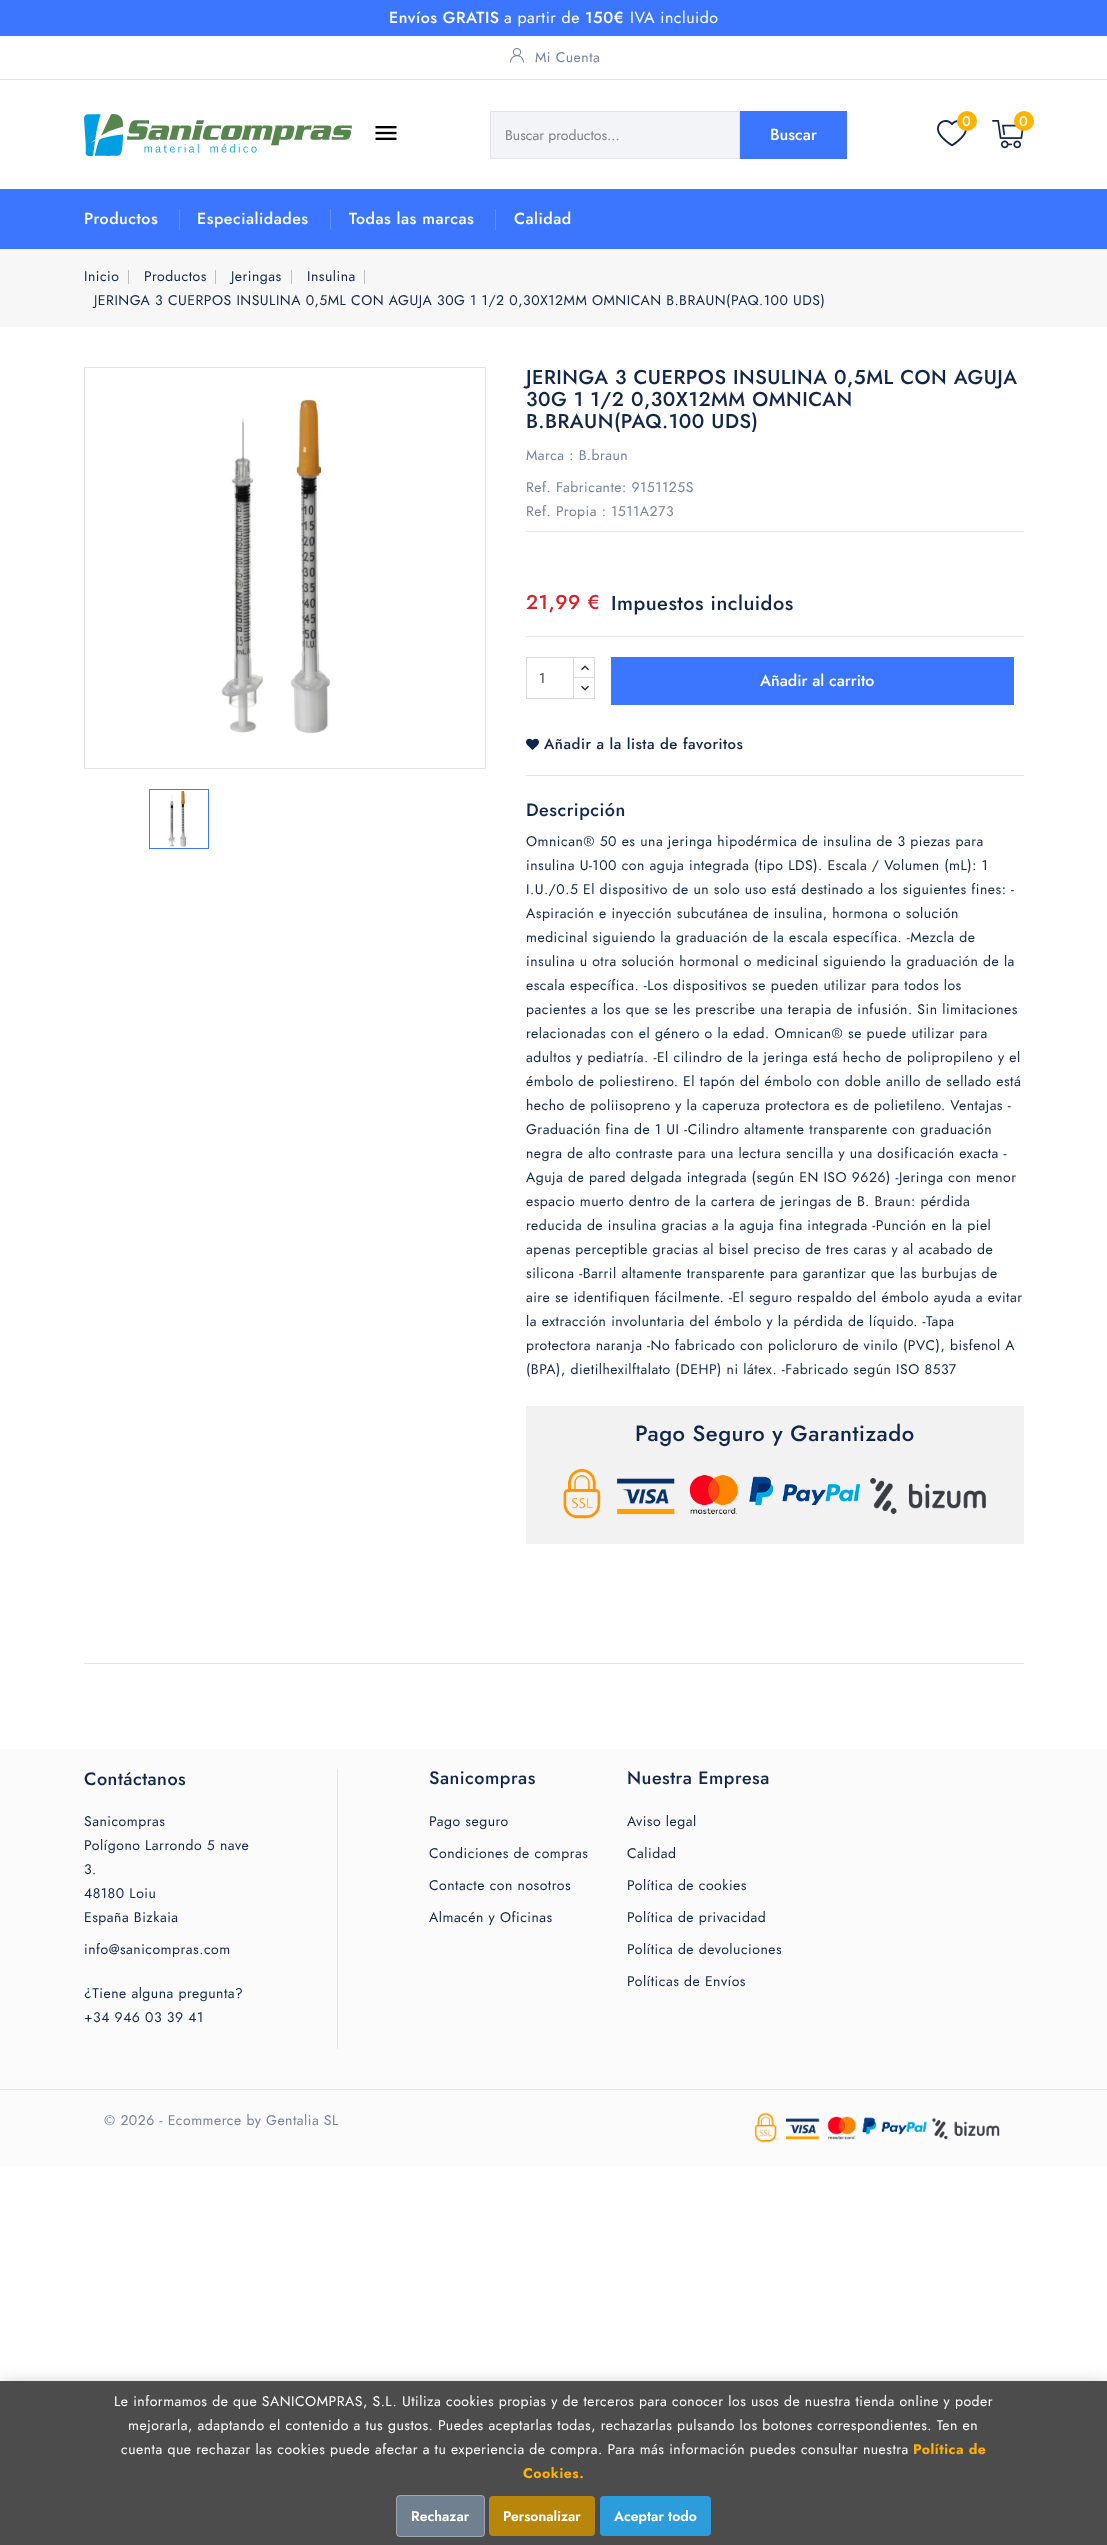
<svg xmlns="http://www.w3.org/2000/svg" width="1107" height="2545">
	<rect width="100%" height="100%" fill="#FFFFFF" />
	<rect x="0" y="0" width="1107" height="36" fill="#3C76FF" />
	<text x="389" y="23" font-family="Jost" font-size="16" font-weight="500" letter-spacing="0.5" fill="#FFFFFF">Envíos GRATIS</text>
	<text x="504" y="23" font-family="Jost" font-size="16" letter-spacing="0.5" fill="#FFFFFF">a partir de</text>
	<text x="585" y="23" font-family="Jost" font-size="16" font-weight="500" letter-spacing="0.5" fill="#FFFFFF">150€</text>
	<text x="630" y="23" font-family="Jost" font-size="16" letter-spacing="0.5" fill="#FFFFFF">IVA incluido</text>
	<rect x="0" y="79" width="1107" height="1" fill="#E5E5E5" />
	<image x="510" y="48" width="14" height="15" href="assets/img1.png" />
	<text x="535" y="62" font-family="Jost" font-size="14" letter-spacing="0.5" fill="#77829D">Mi Cuenta</text>
	<image x="84" y="114" width="268" height="42" href="assets/img2.png" />
	<image x="375" y="126" width="22" height="14" href="assets/img3.png" />
	<image x="937" y="120" width="30" height="27" href="assets/img4.png" />
	<circle cx="967" cy="121" r="10" fill="#FFB200" />
	<text x="962" y="126" font-family="Jost" font-size="14" font-weight="500" letter-spacing="0.5" fill="#FFFFFF">0</text>
	<image x="992" y="120" width="32" height="29" href="assets/img5.png" />
	<circle cx="1024" cy="121" r="10" fill="#FFB200" />
	<text x="1019" y="126" font-family="Jost" font-size="14" font-weight="500" letter-spacing="0.5" fill="#FFFFFF">0</text>
	<rect x="490.5" y="111.5" width="249" height="47" fill="#F2F4F7" stroke="#E5E5E5" />
	<text x="505" y="140" font-family="Jost" font-size="14" fill="#808080">Buscar productos...</text>
	<rect x="740" y="111" width="107" height="48" fill="#3C76FF" />
	<text x="770" y="140" font-family="Jost" font-size="16" font-weight="500" fill="#FFFFFF">Buscar</text>
	<rect x="0" y="189" width="1107" height="60" fill="#3C76FF" />
	<text x="84" y="224" font-family="Jost" font-size="16" font-weight="500" letter-spacing="0.5" fill="#FFFFFF">Productos</text>
	<rect x="179" y="209" width="1" height="21" fill="#6190FF" />
	<text x="197" y="224" font-family="Jost" font-size="16" font-weight="500" letter-spacing="0.5" fill="#FFFFFF">Especialidades</text>
	<rect x="330" y="209" width="1" height="21" fill="#6190FF" />
	<text x="349" y="224" font-family="Jost" font-size="16" font-weight="500" letter-spacing="0.5" fill="#FFFFFF">Todas las marcas</text>
	<rect x="495" y="209" width="1" height="21" fill="#6190FF" />
	<text x="514" y="224" font-family="Jost" font-size="16" font-weight="500" letter-spacing="0.5" fill="#FFFFFF">Calidad</text>
	<rect x="0" y="249" width="1107" height="78" fill="#F7F7F7" />
	<text x="84" y="281" font-family="Jost" font-size="14" letter-spacing="0.5" fill="#11264A">Inicio</text>
	<rect x="128" y="270" width="1" height="14" fill="#BFBFBF" />
	<text x="144" y="281" font-family="Jost" font-size="14" letter-spacing="0.5" fill="#11264A">Productos</text>
	<rect x="215" y="270" width="1" height="14" fill="#BFBFBF" />
	<text x="231" y="281" font-family="Jost" font-size="14" letter-spacing="0.5" fill="#11264A">Jeringas</text>
	<rect x="291" y="270" width="1" height="14" fill="#BFBFBF" />
	<text x="307" y="281" font-family="Jost" font-size="14" letter-spacing="0.5" fill="#11264A">Insulina</text>
	<rect x="364" y="270" width="1" height="14" fill="#BFBFBF" />
	<text x="94" y="305" font-family="Jost" font-size="14" letter-spacing="0.5" fill="#11264A">JERINGA 3 CUERPOS INSULINA 0,5ML CON AGUJA 30G 1 1/2 0,30X12MM OMNICAN B.BRAUN(PAQ.100 UDS)</text>
	<rect x="84.5" y="367.5" width="401" height="401" fill="none" stroke="#E5E5E5" />
	<image x="221" y="398" width="259" height="365" href="assets/img6.png" />
	<rect x="149.5" y="789.5" width="59" height="59" fill="none" stroke="#3C76FF" />
	<image x="149" y="789" width="59" height="59" href="assets/img7.png" />
	<g font-family="Jost" font-size="20" font-weight="500" letter-spacing="0.5" fill="#11264A">
		<text x="526" y="384">JERINGA 3 CUERPOS INSULINA 0,5ML CON AGUJA</text>
		<text x="526" y="406">30G 1 1/2 0,30X12MM OMNICAN</text>
		<text x="526" y="428">B.BRAUN(PAQ.100 UDS)</text>
	</g>
	<rect x="526" y="531" width="498" height="1" fill="#E5E5E5" />
	<g font-family="Jost" font-size="14" letter-spacing="0.5" fill="#77829D">
		<text x="526" y="460">Marca : B.braun</text>
		<text x="526" y="492">Ref. Fabricante: 9151125S</text>
		<text x="526" y="516">Ref. Propia : 1511A273</text>
	</g>
	<text x="526" y="609" font-family="Jost" font-size="20" font-weight="500" letter-spacing="0.5" fill="#D9212D">21,99 €</text>
	<text x="611" y="610" font-family="Jost" font-size="20" font-weight="500" letter-spacing="0.5" fill="#11264A">Impuestos incluidos</text>
	<rect x="526" y="636" width="498" height="1" fill="#E5E5E5" />
	<rect x="526" y="775" width="498" height="1" fill="#E5E5E5" />
	<rect x="573.5" y="657.5" width="21" height="21" fill="none" stroke="#D9D9D9" />
	<rect x="574" y="678" width="20" height="1" fill="#FFFFFF" />
	<rect x="573.5" y="677.5" width="21" height="21" fill="none" stroke="#D9D9D9" />
	<rect x="526.5" y="657.5" width="47" height="41" fill="none" stroke="#D9D9D9" />
	<text x="539" y="683" font-family="Jost" font-size="14" fill="#414141">1</text>
	<image x="581" y="665" width="8" height="6" href="assets/img8.png" />
	<image x="581" y="685" width="8" height="6" href="assets/img9.png" />
	<rect x="611" y="657" width="403" height="48" fill="#3C76FF" />
	<text x="760" y="686" font-family="Jost" font-size="16" font-weight="500" fill="#FFFFFF">Añadir al carrito</text>
	<image x="526" y="738" width="13" height="12" href="assets/img10.png" />
	<text x="544" y="749" font-family="Jost" font-size="15" font-weight="500" letter-spacing="0.5" fill="#11264A">Añadir a la lista de favoritos</text>
	<text x="526" y="816" font-family="Jost" font-size="18" font-weight="500" letter-spacing="0.5" fill="#11264A">Descripción</text>
	<g font-family="Jost" font-size="14" letter-spacing="0.5" fill="#11264A">
		<text x="526" y="846">Omnican® 50 es una jeringa hipodérmica de insulina de 3 piezas para</text>
		<text x="526" y="870">insulina U-100 con aguja integrada (tipo LDS). Escala / Volumen (mL): 1</text>
		<text x="526" y="894">I.U./0.5 El dispositivo de un solo uso está destinado a los siguientes fines: -</text>
		<text x="526" y="918">Aspiración e inyección subcutánea de insulina, hormona o solución</text>
		<text x="526" y="942">medicinal siguiendo la graduación de la escala específica. -Mezcla de</text>
		<text x="526" y="966">insulina u otra solución hormonal o medicinal siguiendo la graduación de la</text>
		<text x="526" y="990">escala específica. -Los dispositivos se pueden utilizar para todos los</text>
		<text x="526" y="1014">pacientes a los que se les prescribe una terapia de infusión. Sin limitaciones</text>
		<text x="526" y="1038">relacionadas con el género o la edad. Omnican® se puede utilizar para</text>
		<text x="526" y="1062">adultos y pediatría. -El cilindro de la jeringa está hecho de polipropileno y el</text>
		<text x="526" y="1086">émbolo de poliestireno. El tapón del émbolo con doble anillo de sellado está</text>
		<text x="526" y="1110">hecho de poliisopreno y la caperuza protectora es de polietileno. Ventajas -</text>
		<text x="526" y="1134">Graduación fina de 1 UI -Cilindro altamente transparente con graduación</text>
		<text x="526" y="1158">negra de alto contraste para una lectura sencilla y una dosificación exacta -</text>
		<text x="526" y="1182">Aguja de pared delgada integrada (según EN ISO 9626) -Jeringa con menor</text>
		<text x="526" y="1206">espacio muerto dentro de la cartera de jeringas de B. Braun: pérdida</text>
		<text x="526" y="1230">reducida de insulina gracias a la aguja fina integrada -Punción en la piel</text>
		<text x="526" y="1254">apenas perceptible gracias al bisel preciso de tres caras y al acabado de</text>
		<text x="526" y="1278">silicona -Barril altamente transparente para garantizar que las burbujas de</text>
		<text x="526" y="1302">aire se identifiquen fácilmente. -El seguro respaldo del émbolo ayuda a evitar</text>
		<text x="526" y="1326">la extracción involuntaria del émbolo y la pérdida de líquido. -Tapa</text>
		<text x="526" y="1350">protectora naranja -No fabricado con policloruro de vinilo (PVC), bisfenol A</text>
		<text x="526" y="1374">(BPA), dietilhexilftalato (DEHP) ni látex. -Fabricado según ISO 8537</text>
	</g>
	<rect x="526" y="1406" width="498" height="138" fill="#F2F2F2" />
	<text x="635" y="1441" font-family="Jost" font-size="22" font-weight="500" letter-spacing="0.5" fill="#11264A">Pago Seguro y Garantizado</text>
	<image x="563" y="1469" width="423" height="50" href="assets/img11.png" />
	<rect x="84" y="1663" width="940" height="1" fill="#E5E5E5" />
	<rect x="0" y="1749" width="1107" height="417" fill="#FBFBFB" />
	<text x="429" y="1784" font-family="Jost" font-size="18" font-weight="500" letter-spacing="0.5" fill="#11264A">Sanicompras</text>
	<g font-family="Jost" font-size="14" letter-spacing="0.5" fill="#11264A">
		<text x="429" y="1826">Pago seguro</text>
		<text x="429" y="1858">Condiciones de compras</text>
		<text x="429" y="1890">Contacte con nosotros</text>
		<text x="429" y="1922">Almacén y Oficinas</text>
	</g>
	<text x="627" y="1784" font-family="Jost" font-size="18" font-weight="500" letter-spacing="0.5" fill="#11264A">Nuestra Empresa</text>
	<g font-family="Jost" font-size="14" letter-spacing="0.5" fill="#11264A">
		<text x="627" y="1826">Aviso legal</text>
		<text x="627" y="1858">Calidad</text>
		<text x="627" y="1890">Política de cookies</text>
		<text x="627" y="1922">Política de privacidad</text>
		<text x="627" y="1954">Política de devoluciones</text>
		<text x="627" y="1986">Políticas de Envíos</text>
	</g>
	<rect x="0" y="2385" width="1107" height="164" fill="#000000" fill-opacity="0.25" filter="blur(9px)" />
	<rect x="0" y="2381" width="1107" height="164" fill="#4C4C4C" />
	<g font-family="Jost" font-size="14" letter-spacing="0.5" fill="#FFFFFF">
		<text x="114" y="2406">Le informamos de que SANICOMPRAS, S.L. Utiliza cookies propias y de terceros para conocer los usos de nuestra tienda online y poder</text>
		<text x="128" y="2430">mejorarla, adaptando el contenido a tus gustos. Puedes aceptarlas todas, rechazarlas pulsando los botones correspondientes. Ten en</text>
		<text x="121" y="2454">cuenta que rechazar las cookies puede afectar a tu experiencia de compra. Para más información puedes consultar nuestra</text>
	</g>
	<g font-family="Jost" font-size="14" font-weight="700" letter-spacing="0.5" fill="#FFB200">
		<text x="913" y="2454">Política de</text>
		<text x="523" y="2478">Cookies.</text>
	</g>
	<rect x="396" y="2495" width="89" height="42" rx="4" fill="#708090" />
	<rect x="396.5" y="2495.5" width="88" height="41" rx="3.5" fill="none" stroke="#FFFFFF" stroke-opacity="0.3" />
	<text x="411" y="2521" font-family="Jost" font-size="14" font-weight="600" fill="#FFFFFF">Rechazar</text>
	<rect x="489" y="2496" width="106" height="40" rx="4" fill="#B8860B" />
	<text x="503" y="2521" font-family="Jost" font-size="14" font-weight="600" fill="#FFFFFF">Personalizar</text>
	<rect x="600" y="2496" width="111" height="40" rx="4" fill="#2D9CDB" />
	<text x="614" y="2521" font-family="Jost" font-size="14" font-weight="600" fill="#FFFFFF">Aceptar todo</text>
	<text x="84" y="1785" font-family="Jost" font-size="18" font-weight="500" letter-spacing="0.5" fill="#11264A">Contáctanos</text>
	<g font-family="Jost" font-size="14" letter-spacing="0.5" fill="#11264A">
		<text x="84" y="1826">Sanicompras</text>
		<text x="84" y="1850">Polígono Larrondo 5 nave</text>
		<text x="84" y="1874">3.</text>
		<text x="84" y="1898">48180 Loiu</text>
		<text x="84" y="1922">España Bizkaia</text>
		<text x="84" y="1954">info@sanicompras.com</text>
		<text x="84" y="1998">¿Tiene alguna pregunta?</text>
		<text x="84" y="2022">+34 946 03 39 41</text>
	</g>
	<rect x="337" y="1769" width="1" height="280" fill="#E5E5E5" />
	<rect x="0" y="2089" width="1107" height="1" fill="#E5E5E5" />
	<text x="104" y="2125" font-family="Jost" font-size="14" letter-spacing="0.5" fill="#77829D">© 2026 - Ecommerce by Gentalia SL</text>
	<image x="754" y="2112" width="246" height="31" href="assets/img12.png" />
</svg>
